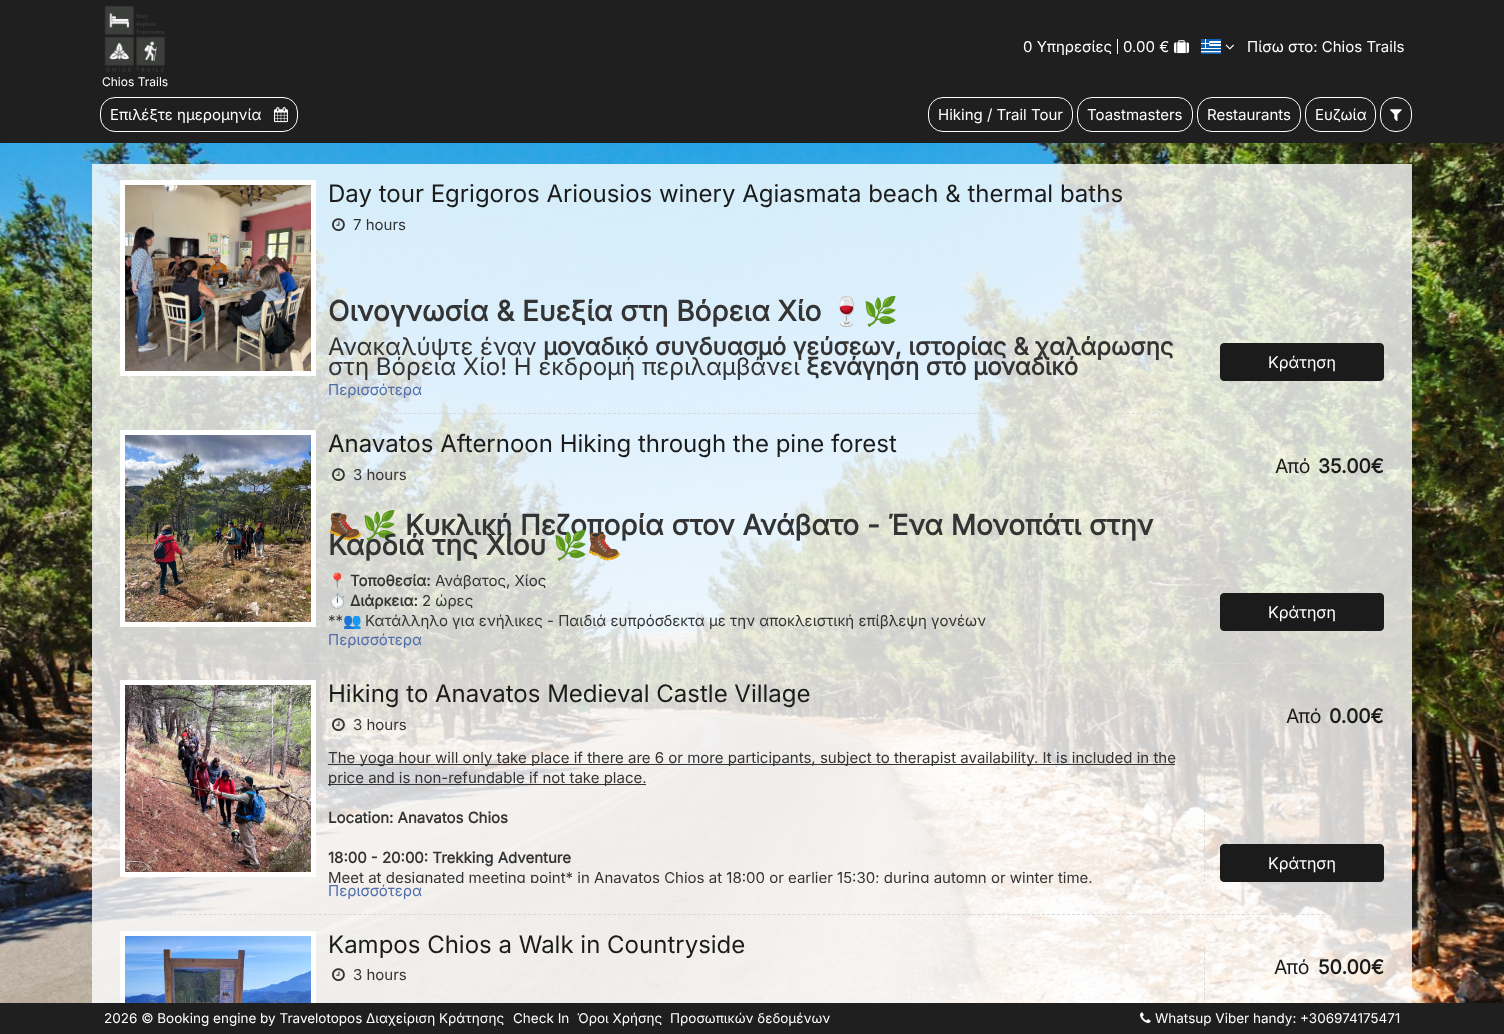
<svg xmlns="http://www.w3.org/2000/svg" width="1504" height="1034">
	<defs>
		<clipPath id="clip1"><rect x="328" y="498" width="876" height="134" /></clipPath>
		<clipPath id="clip2"><rect x="328" y="748" width="876" height="135" /></clipPath>
	</defs>
	<rect width="100%" height="100%" fill="#FFFFFF" />
	<rect x="0" y="0" width="1504" height="143" fill="#1F1F1F" />
	<text x="1023" y="52" font-family="Inter" font-size="15" fill="#FFFFFF">0 Υπηρεσίες</text>
	<rect x="1117" y="39" width="1" height="15" fill="#FFFFFF" />
	<text x="1123" y="52" font-family="Inter" font-size="15" fill="#FFFFFF">0.00 €</text>
	<image x="1174" y="40" width="15" height="14" href="assets/img1.png" />
	<image x="1201" y="39" width="20" height="15" href="assets/img2.png" />
	<image x="1225" y="44" width="9" height="6" href="assets/img3.png" />
	<text x="1247" y="52" font-family="Inter" font-size="15" fill="#FFFFFF">Πίσω στο: Chios Trails</text>
	<image x="104" y="6" width="61" height="66" href="assets/img4.png" />
	<text x="102" y="86" font-family="Inter" font-size="12" fill="#FFFFFF">Chios Trails</text>
	<rect x="100.5" y="97.5" width="197" height="34" rx="14.5" fill="none" stroke="#FFFFFF" />
	<text x="110" y="120" font-family="Inter" font-size="15" fill="#FFFFFF">Επιλέξτε ημερομηνία</text>
	<image x="274" y="107" width="14" height="16" href="assets/img5.png" />
	<rect x="928.5" y="97.5" width="144" height="34" rx="14.5" fill="none" stroke="#FFFFFF" />
	<text x="938" y="120" font-family="Inter" font-size="15" fill="#FFFFFF">Hiking / Trail Tour</text>
	<rect x="1077.5" y="97.5" width="115" height="34" rx="14.5" fill="none" stroke="#FFFFFF" />
	<text x="1087" y="120" font-family="Inter" font-size="15" fill="#FFFFFF">Toastmasters</text>
	<rect x="1197.5" y="97.5" width="103" height="34" rx="14.5" fill="none" stroke="#FFFFFF" />
	<text x="1207" y="120" font-family="Inter" font-size="15" fill="#FFFFFF">Restaurants</text>
	<rect x="1305.5" y="97.5" width="70" height="34" rx="14.5" fill="none" stroke="#FFFFFF" />
	<text x="1315" y="120" font-family="Inter" font-size="15" fill="#FFFFFF">Ευζωία</text>
	<rect x="1380.5" y="97.5" width="31" height="34" rx="14.5" fill="none" stroke="#FFFFFF" />
	<image x="1390" y="109" width="12" height="12" href="assets/img6.png" />
	<image x="0" y="143" width="1504" height="860" href="assets/img7.png" />
	<rect x="92" y="164" width="1320" height="839" fill="#FFFFFF" fill-opacity="0.8" />
	<path d="M104 413.5H1400" fill="none" stroke="#D9D9D9" stroke-dasharray="3 1.99" />
	<image x="125" y="185" width="186" height="186" href="assets/img8.png" />
	<rect x="122.5" y="182.5" width="191" height="191" fill="none" stroke="#FFFFFF" stroke-width="5" />
	<text x="328" y="202" font-family="Inter" font-size="24" fill="#1A1B1A">Day tour Egrigoros Ariousios winery Agiasmata beach &amp; thermal baths</text>
	<image x="332" y="218" width="13" height="14" href="assets/img9.png" />
	<text x="353" y="230" font-family="Inter" font-size="15" fill="#343434">7 hours</text>
	<text x="328" y="321" font-family="Inter" font-size="28" font-weight="700" fill="#343434">Οινογνωσία &amp; Ευεξία στη Βόρεια Χίο</text>
	<text x="829" y="321" font-family="Noto Color Emoji" font-size="28" font-weight="700" fill="#343434">🍷🌿</text>
	<text x="328" y="355" font-family="Inter" font-size="24" fill="#343434">Ανακαλύψτε έναν</text>
	<text x="543" y="355" font-family="Inter" font-size="24" font-weight="700" fill="#343434">μοναδικό συνδυασμό γεύσεων, ιστορίας &amp; χαλάρωσης</text>
	<text x="328" y="375" font-family="Inter" font-size="24" fill="#343434">στη Βόρεια Χίο! Η εκδρομή περιλαμβάνει</text>
	<text x="806" y="375" font-family="Inter" font-size="24" font-weight="700" fill="#343434">ξενάγηση στο μοναδικό</text>
	<text x="328" y="395" font-family="Inter" font-size="15" fill="#4F6DAB">Περισσότερα</text>
	<path d="M1204.5 196V381" fill="none" stroke="#D9D9D9" stroke-dasharray="3 2.06" />
	<rect x="1220.5" y="343.5" width="163" height="37" rx="3.5" fill="#1A1B1A" stroke="#1A1B1A" />
	<text x="1268" y="368" font-family="Inter" font-size="16" fill="#FFFFFF">Κράτηση</text>
	<path d="M104 663.5H1400" fill="none" stroke="#D9D9D9" stroke-dasharray="3 1.99" />
	<image x="125" y="435" width="186" height="187" href="assets/img10.png" />
	<rect x="122.5" y="432.5" width="191" height="192" fill="none" stroke="#FFFFFF" stroke-width="5" />
	<text x="328" y="452" font-family="Inter" font-size="24" fill="#1A1B1A">Anavatos Afternoon Hiking through the pine forest</text>
	<image x="332" y="468" width="13" height="14" href="assets/img11.png" />
	<text x="353" y="480" font-family="Inter" font-size="15" fill="#343434">3 hours</text>
	<g clip-path="url(#clip1)">
		<text x="328" y="535" font-family="Noto Color Emoji" font-size="28" fill="#343434">🥾🌿</text>
	</g>
	<g font-family="Inter" font-size="28" font-weight="700" fill="#343434">
		<text x="405" y="535">Κυκλική Πεζοπορία στον Ανάβατο - Ένα Μονοπάτι στην</text>
		<text x="328" y="555">Καρδιά της Χίου</text>
	</g>
	<text x="553" y="555" font-family="Noto Color Emoji" font-size="28" fill="#343434">🌿🥾</text>
	<g clip-path="url(#clip1)">
		<text x="328" y="586" font-family="Noto Color Emoji" font-size="15" font-weight="700" fill="#343434">📍</text>
	</g>
	<text x="350" y="586" font-family="Inter" font-size="15" font-weight="700" fill="#343434">Τοποθεσία:</text>
	<text x="435" y="586" font-family="Inter" font-size="15" fill="#343434">Ανάβατος, Χίος</text>
	<g clip-path="url(#clip1)">
		<text x="328" y="606" font-family="Noto Color Emoji" font-size="15" font-weight="700" fill="#343434">⏱️</text>
	</g>
	<text x="350" y="606" font-family="Inter" font-size="15" font-weight="700" fill="#343434">Διάρκεια:</text>
	<g font-family="Inter" font-size="15" fill="#343434">
		<text x="422" y="606">2 ώρες</text>
		<text x="328" y="626">**</text>
	</g>
	<text x="343" y="626" font-family="'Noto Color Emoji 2'" font-size="15" fill="#343434">👥</text>
	<text x="365" y="626" font-family="Inter" font-size="15" fill="#343434">Κατάλληλο για ενήλικες - Παιδιά ευπρόσδεκτα με την αποκλειστική επίβλεψη γονέων</text>
	<text x="328" y="645" font-family="Inter" font-size="15" fill="#4F6DAB">Περισσότερα</text>
	<path d="M1204.5 446V631" fill="none" stroke="#D9D9D9" stroke-dasharray="3 2.06" />
	<text x="1275" y="473" font-family="Inter" font-size="19.5" fill="#1A1B1A">Από</text>
	<text x="1318" y="473" font-family="Inter" font-size="19.5" font-weight="700" fill="#1A1B1A">35.00€</text>
	<rect x="1220.5" y="593.5" width="163" height="37" rx="3.5" fill="#1A1B1A" stroke="#1A1B1A" />
	<text x="1268" y="618" font-family="Inter" font-size="16" fill="#FFFFFF">Κράτηση</text>
	<path d="M104 914.5H1400" fill="none" stroke="#D9D9D9" stroke-dasharray="3 1.99" />
	<image x="125" y="685" width="186" height="187" href="assets/img12.png" />
	<rect x="122.5" y="682.5" width="191" height="192" fill="none" stroke="#FFFFFF" stroke-width="5" />
	<text x="328" y="702" font-family="Inter" font-size="24" fill="#1A1B1A">Hiking to Anavatos Medieval Castle Village</text>
	<image x="332" y="718" width="13" height="14" href="assets/img13.png" />
	<text x="353" y="730" font-family="Inter" font-size="15" fill="#343434">3 hours</text>
	<rect x="328" y="764" width="847" height="1" fill="#343434" />
	<text x="328" y="763" font-family="Inter" font-size="15" fill="#343434">The yoga hour will only take place if there are 6 or more participants, subject to therapist availability. It is included in the</text>
	<rect x="328" y="784" width="318" height="1" fill="#343434" />
	<text x="328" y="783" font-family="Inter" font-size="15" fill="#343434">price and is non-refundable if not take place.</text>
	<g font-family="Inter" font-size="15" font-weight="700" fill="#343434">
		<text x="328" y="823">Location: Anavatos Chios</text>
		<text x="328" y="863">18:00 - 20:00: Trekking Adventure</text>
	</g>
	<g clip-path="url(#clip2)">
		<text x="328" y="883" font-family="Inter" font-size="15" fill="#343434">Meet at designated meeting point* in Anavatos Chios at 18:00 or earlier 15:30; during automn or winter time.</text>
	</g>
	<text x="328" y="896" font-family="Inter" font-size="15" fill="#4F6DAB">Περισσότερα</text>
	<path d="M1204.5 696V882" fill="none" stroke="#D9D9D9" stroke-dasharray="3 1.95" />
	<text x="1286" y="723" font-family="Inter" font-size="19.5" fill="#1A1B1A">Από</text>
	<text x="1329" y="723" font-family="Inter" font-size="19.5" font-weight="700" fill="#1A1B1A">0.00€</text>
	<rect x="1220.5" y="844.5" width="163" height="37" rx="3.5" fill="#1A1B1A" stroke="#1A1B1A" />
	<text x="1268" y="869" font-family="Inter" font-size="16" fill="#FFFFFF">Κράτηση</text>
	<image x="125" y="936" width="186" height="67" href="assets/img14.png" />
	<rect x="122.5" y="933.5" width="191" height="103" fill="none" stroke="#FFFFFF" stroke-width="5" />
	<text x="328" y="953" font-family="Inter" font-size="24" fill="#1A1B1A">Kampos Chios a Walk in Countryside</text>
	<image x="332" y="968" width="13" height="14" href="assets/img15.png" />
	<text x="353" y="980" font-family="Inter" font-size="15" fill="#343434">3 hours</text>
	<path d="M1204.5 947V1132" fill="none" stroke="#D9D9D9" stroke-dasharray="3 2.06" />
	<text x="1274" y="974" font-family="Inter" font-size="19.5" fill="#1A1B1A">Από</text>
	<text x="1318" y="974" font-family="Inter" font-size="19.5" font-weight="700" fill="#1A1B1A">50.00€</text>
	<rect x="0" y="1003" width="1504" height="31" fill="#1F1F1F" />
	<g font-family="Inter" font-size="13.5" fill="#FFFFFF">
		<text x="104" y="1023">2026 © Booking engine by Travelotopos Διαχείριση Κράτησης</text>
		<text x="513" y="1023">Check In</text>
		<text x="577" y="1023">Όροι Χρήσης</text>
		<text x="670" y="1023">Προσωπικών δεδομένων</text>
	</g>
	<image x="1140" y="1012" width="11" height="11" href="assets/img16.png" />
	<text x="1155" y="1023" font-family="Inter" font-size="13.5" fill="#FFFFFF">Whatsup Viber handy: +306974175471</text>
</svg>
